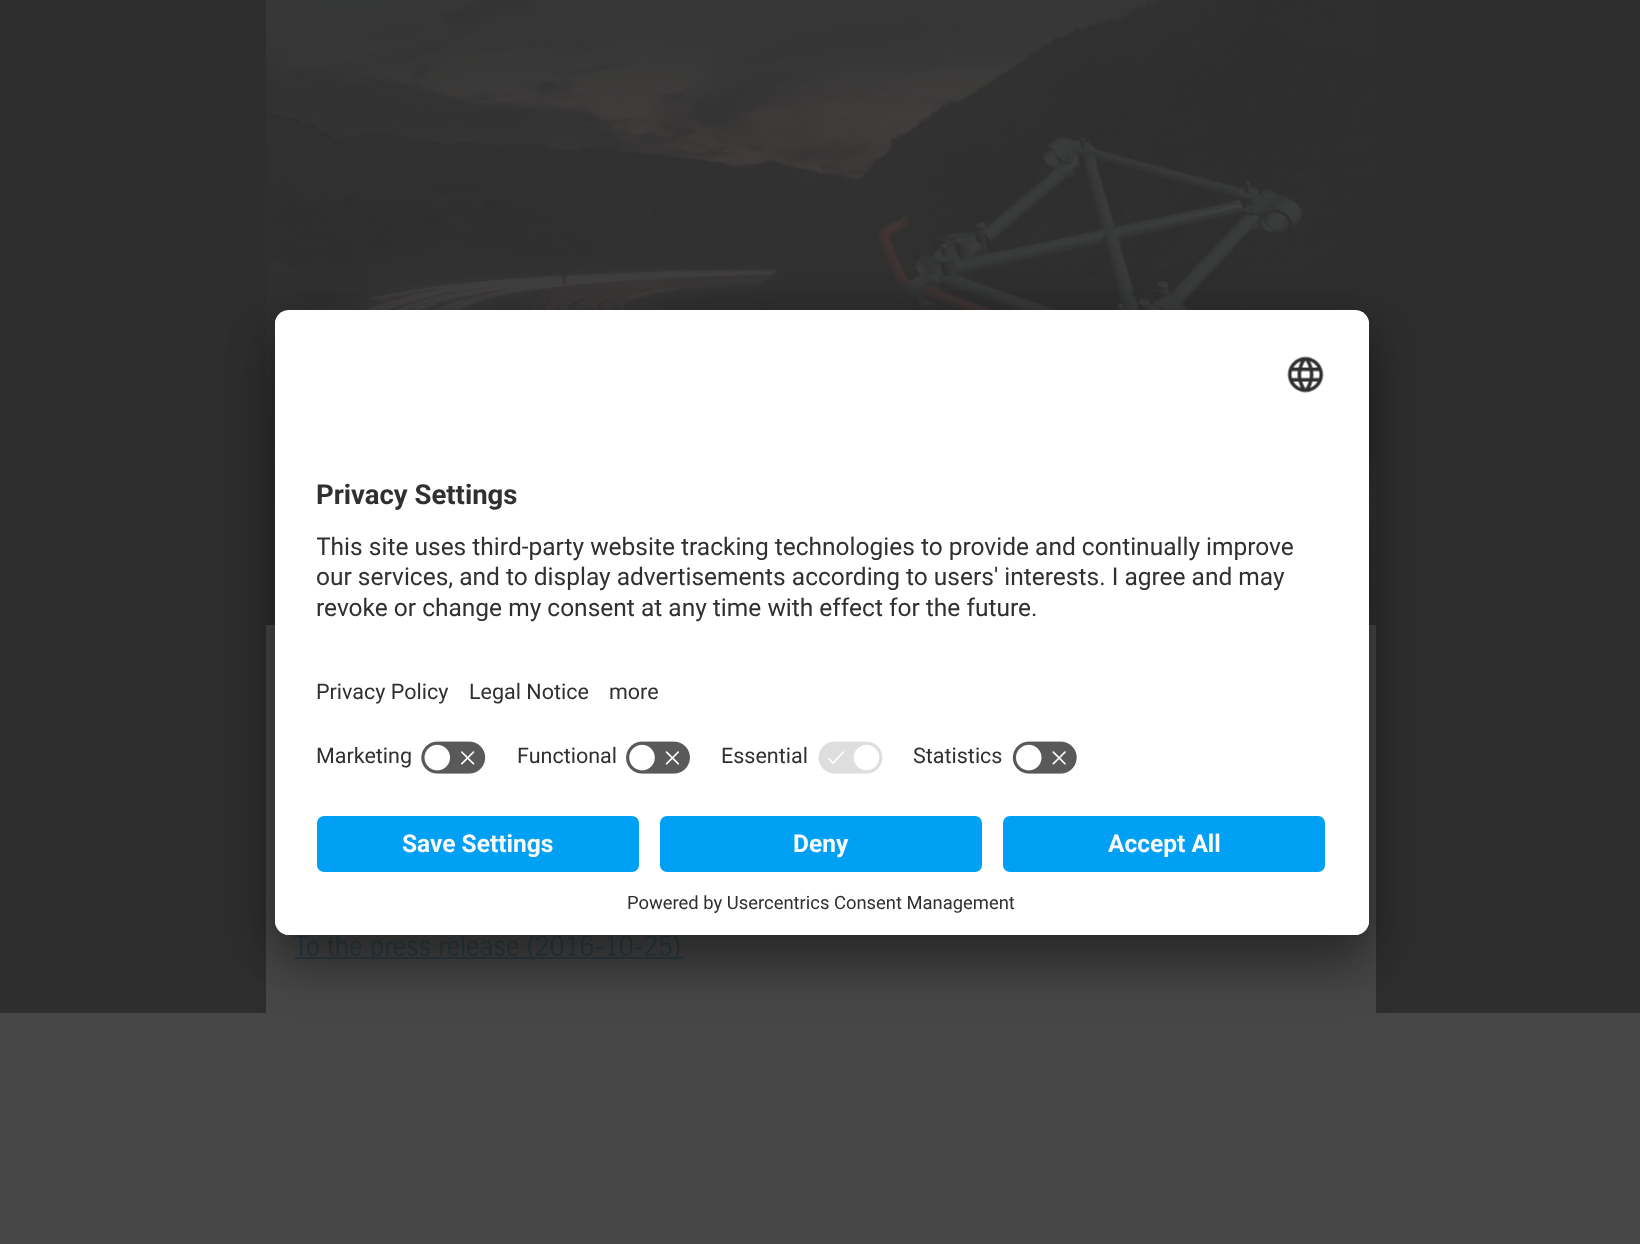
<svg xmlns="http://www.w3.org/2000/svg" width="1640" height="1244">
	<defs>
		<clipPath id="clip1"><rect x="275" y="310" width="1094" height="625" rx="14" /></clipPath>
		<clipPath id="clip2"><path d="M289 310H1355C1362.5 310 1369 316.5 1369 324V802H275V324C275 316.5 281.5 310 289 310Z" /></clipPath>
		<clipPath id="clip3"><rect x="317" y="525" width="1010" height="105" /></clipPath>
	</defs>
	<rect width="100%" height="100%" fill="#474747" />
	<rect x="0" y="0" width="1640" height="1013" fill="#2E2E2E" />
	<image x="266" y="0" width="1110" height="625" href="assets/img1.png" />
	<rect x="266" y="625" width="1110" height="388" fill="#474747" />
	<rect x="294" y="957" width="389" height="2" fill="#2E3E46" />
	<image x="294" y="935" width="386" height="26" href="assets/img2.png" />
	<rect x="275" y="345" width="1094" height="625" rx="14" fill="#000000" fill-opacity="0.3" filter="blur(24.5px)" />
	<rect x="275" y="319" width="1094" height="624" rx="14" fill="#000000" fill-opacity="0.22" filter="blur(23px)" />
	<rect x="275" y="310" width="1094" height="625" rx="14" fill="#FFFFFF" />
	<g clip-path="url(#clip1)">
		<g clip-path="url(#clip2)">
			<rect x="275" y="312" width="1094" height="490" fill="#FFFFFF" />
			<rect x="275" y="312" width="1094" height="420" fill="#FFFFFF" />
		</g>
	</g>
	<image x="1287" y="356" width="37" height="37" href="assets/img3.png" />
	<text x="316" y="504" font-family="Roboto" font-size="27.5" font-weight="700" fill="#303030">Privacy Settings</text>
	<g clip-path="url(#clip3)">
		<text x="316" y="555" font-family="Roboto" font-size="24.5" fill="#303030">This site uses third-party website tracking technologies to provide and continually improve</text>
	</g>
	<g font-family="Roboto" font-size="24.5" fill="#303030">
		<text x="316" y="585">our services, and to display advertisements according to users' interests. I agree and may</text>
		<text x="316" y="616">revoke or change my consent at any time with effect for the future.</text>
	</g>
	<g font-family="Roboto" font-size="21.5" fill="#303030">
		<text x="316" y="699">Privacy Policy</text>
		<text x="469" y="699">Legal Notice</text>
		<text x="609" y="699">more</text>
		<text x="316" y="763">Marketing</text>
	</g>
	<image x="421" y="741" width="65" height="33" href="assets/img4.png" />
	<text x="517" y="763" font-family="Roboto" font-size="21.5" fill="#303030">Functional</text>
	<image x="626" y="741" width="64" height="33" href="assets/img5.png" />
	<text x="721" y="763" font-family="Roboto" font-size="21.5" fill="#303030">Essential</text>
	<image x="818" y="741" width="65" height="33" href="assets/img6.png" />
	<text x="913" y="763" font-family="Roboto" font-size="21.5" fill="#303030">Statistics</text>
	<image x="1012" y="741" width="65" height="33" href="assets/img7.png" />
	<path d="M275 802H1369V921C1369 928.5 1362.5 935 1355 935H289C281.5 935 275 928.5 275 921Z" fill="#FFFFFF" />
	<rect x="317" y="816" width="322" height="56" rx="7" fill="#00A0F5" />
	<text x="402" y="852" font-family="Roboto" font-size="24.5" font-weight="700" fill="#FAFAFA">Save Settings</text>
	<rect x="660" y="816" width="322" height="56" rx="7" fill="#00A0F5" />
	<text x="793" y="852" font-family="Roboto" font-size="24.5" font-weight="700" fill="#FAFAFA">Deny</text>
	<rect x="1003" y="816" width="322" height="56" rx="7" fill="#00A0F5" />
	<text x="1108" y="852" font-family="Roboto" font-size="24.5" font-weight="700" fill="#FAFAFA">Accept All</text>
	<text x="627" y="909" font-family="Roboto" font-size="18.4" fill="#303030">Powered by Usercentrics Consent Management</text>
</svg>
